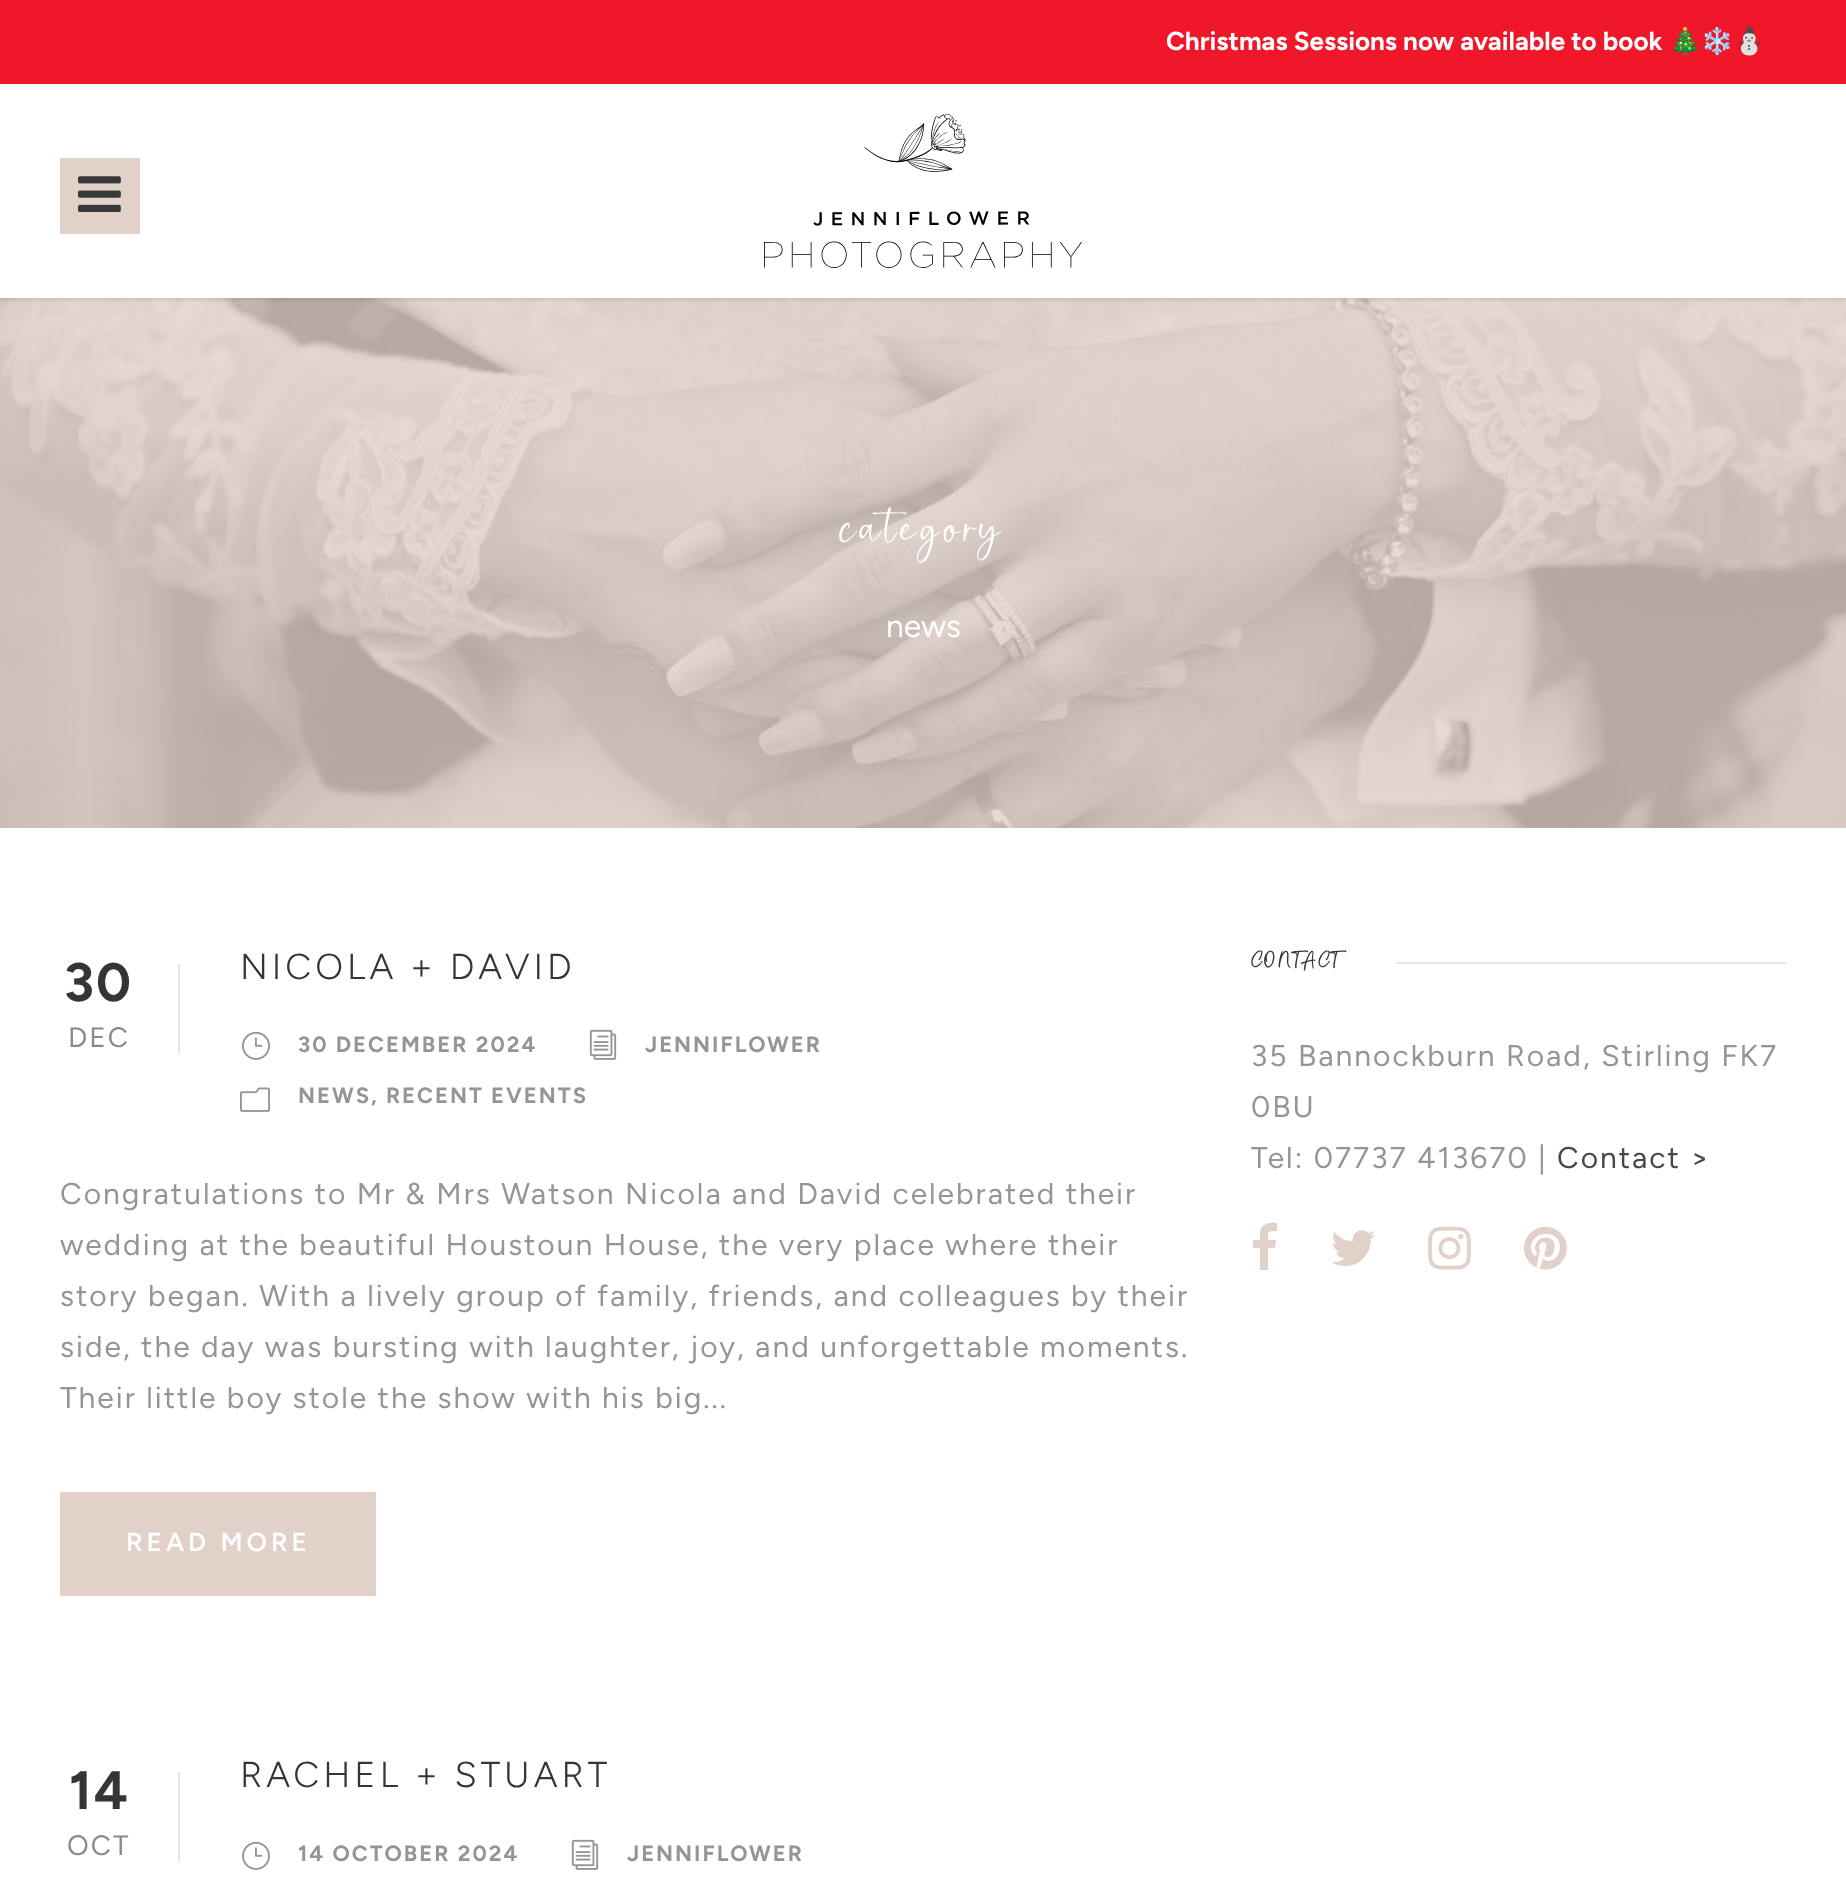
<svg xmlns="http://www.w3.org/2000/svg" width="1846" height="1884">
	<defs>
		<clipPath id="clip1"><rect x="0" y="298" width="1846" height="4" /></clipPath>
	</defs>
	<rect width="100%" height="100%" fill="#FFFFFF" />
	<rect x="0" y="0" width="1846" height="84" fill="#F0172A" />
	<text x="1166" y="50" font-family="Figtree" font-size="26" font-weight="700" fill="#FFFFFF">Christmas Sessions now available to book</text>
	<text x="1669" y="50" font-family="Noto Color Emoji" font-size="26" font-weight="700" fill="#FFFFFF">🎄❄️⛄</text>
	<image x="0" y="298" width="1846" height="530" href="assets/img3.png" />
	<g clip-path="url(#clip1)">
		<rect x="0" y="86" width="1846" height="214" fill="#000000" fill-opacity="0.1" filter="blur(2px)" />
	</g>
	<rect x="60" y="158" width="80" height="76" fill="#E1D1C9" />
	<image x="78" y="176" width="43" height="36" href="assets/img1.png" />
	<image x="764" y="114" width="318" height="154" href="assets/img2.png" />
	<text x="841" y="542" font-family="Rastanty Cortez" font-size="74" letter-spacing="4" fill="#FFFFFF">category</text>
	<text x="886" y="637" font-family="Figtree" font-size="32" fill="#FFFFFF">news</text>
	<rect x="178" y="964" width="2" height="90" fill="#E6E6E6" />
	<text x="64" y="1001" font-family="Figtree" font-size="54" font-weight="700" letter-spacing="2" fill="#353535">30</text>
	<text x="68" y="1047" font-family="Figtree" font-size="28" letter-spacing="2" fill="#8A8A8A">DEC</text>
	<text x="240" y="979" font-family="Figtree" font-size="36" font-weight="300" letter-spacing="4" fill="#353535">NICOLA + DAVID</text>
	<image x="242" y="1031" width="28" height="29" href="assets/img4.png" />
	<text x="298" y="1052" font-family="Figtree" font-size="22" font-weight="700" letter-spacing="2" fill="#939598">30 DECEMBER 2024</text>
	<image x="589" y="1029" width="28" height="31" href="assets/img5.png" />
	<text x="645" y="1052" font-family="Figtree" font-size="22" font-weight="700" letter-spacing="2" fill="#939598">JENNIFLOWER</text>
	<image x="240" y="1087" width="30" height="25" href="assets/img6.png" />
	<text x="298" y="1103" font-family="Figtree" font-size="22" font-weight="700" letter-spacing="2" fill="#939598">NEWS, RECENT EVENTS</text>
	<g font-family="Figtree" font-size="30" letter-spacing="2" fill="#939598">
		<text x="60" y="1204">Congratulations to Mr &amp; Mrs Watson Nicola and David celebrated their</text>
		<text x="60" y="1255">wedding at the beautiful Houstoun House, the very place where their</text>
		<text x="60" y="1306">story began. With a lively group of family, friends, and colleagues by their</text>
		<text x="60" y="1357">side, the day was bursting with laughter, joy, and unforgettable moments.</text>
		<text x="60" y="1408">Their little boy stole the show with his big...</text>
	</g>
	<rect x="60" y="1492" width="316" height="104" fill="#E1D1C9" />
	<text x="126" y="1551" font-family="Figtree" font-size="26" font-weight="600" letter-spacing="4" fill="#FFFFFF">READ MORE</text>
	<rect x="178" y="1772" width="2" height="90" fill="#E6E6E6" />
	<text x="69" y="1809" font-family="Figtree" font-size="54" font-weight="700" letter-spacing="2" fill="#353535">14</text>
	<text x="67" y="1855" font-family="Figtree" font-size="28" letter-spacing="2" fill="#8A8A8A">OCT</text>
	<text x="240" y="1787" font-family="Figtree" font-size="36" font-weight="300" letter-spacing="4" fill="#353535">RACHEL + STUART</text>
	<image x="242" y="1841" width="28" height="29" href="assets/img4.png" />
	<text x="298" y="1861" font-family="Figtree" font-size="22" font-weight="700" letter-spacing="2" fill="#939598">14 OCTOBER 2024</text>
	<image x="571" y="1839" width="28" height="31" href="assets/img5.png" />
	<text x="627" y="1861" font-family="Figtree" font-size="22" font-weight="700" letter-spacing="2" fill="#939598">JENNIFLOWER</text>
	<text x="1251" y="965" font-family="Rastanty Cortez" font-size="24" font-weight="700" letter-spacing="2" fill="#353535">CONTACT</text>
	<rect x="1396" y="962" width="390" height="2" fill="#E6E6E6" />
	<g font-family="Figtree" font-size="30" letter-spacing="2" fill="#939598">
		<text x="1251" y="1066">35 Bannockburn Road, Stirling FK7</text>
		<text x="1251" y="1117">0BU</text>
		<text x="1251" y="1168">Tel: 07737 413670 |</text>
	</g>
	<text x="1557" y="1168" font-family="Figtree" font-size="30" letter-spacing="2" fill="#484848">Contact &gt;</text>
	<path d="M1277 1223V1231C1268 1231 1268 1231 1268 1240H1276L1275 1248H1268V1270H1260V1248H1253V1240H1260V1232C1261 1223 1270 1222 1277 1223Z" fill="#E1D1C9" />
	<image x="1331" y="1230" width="44" height="36" href="assets/img7.png" />
	<image x="1428" y="1226" width="43" height="44" href="assets/img8.png" />
	<image x="1524" y="1226" width="43" height="44" href="assets/img9.png" />
</svg>
